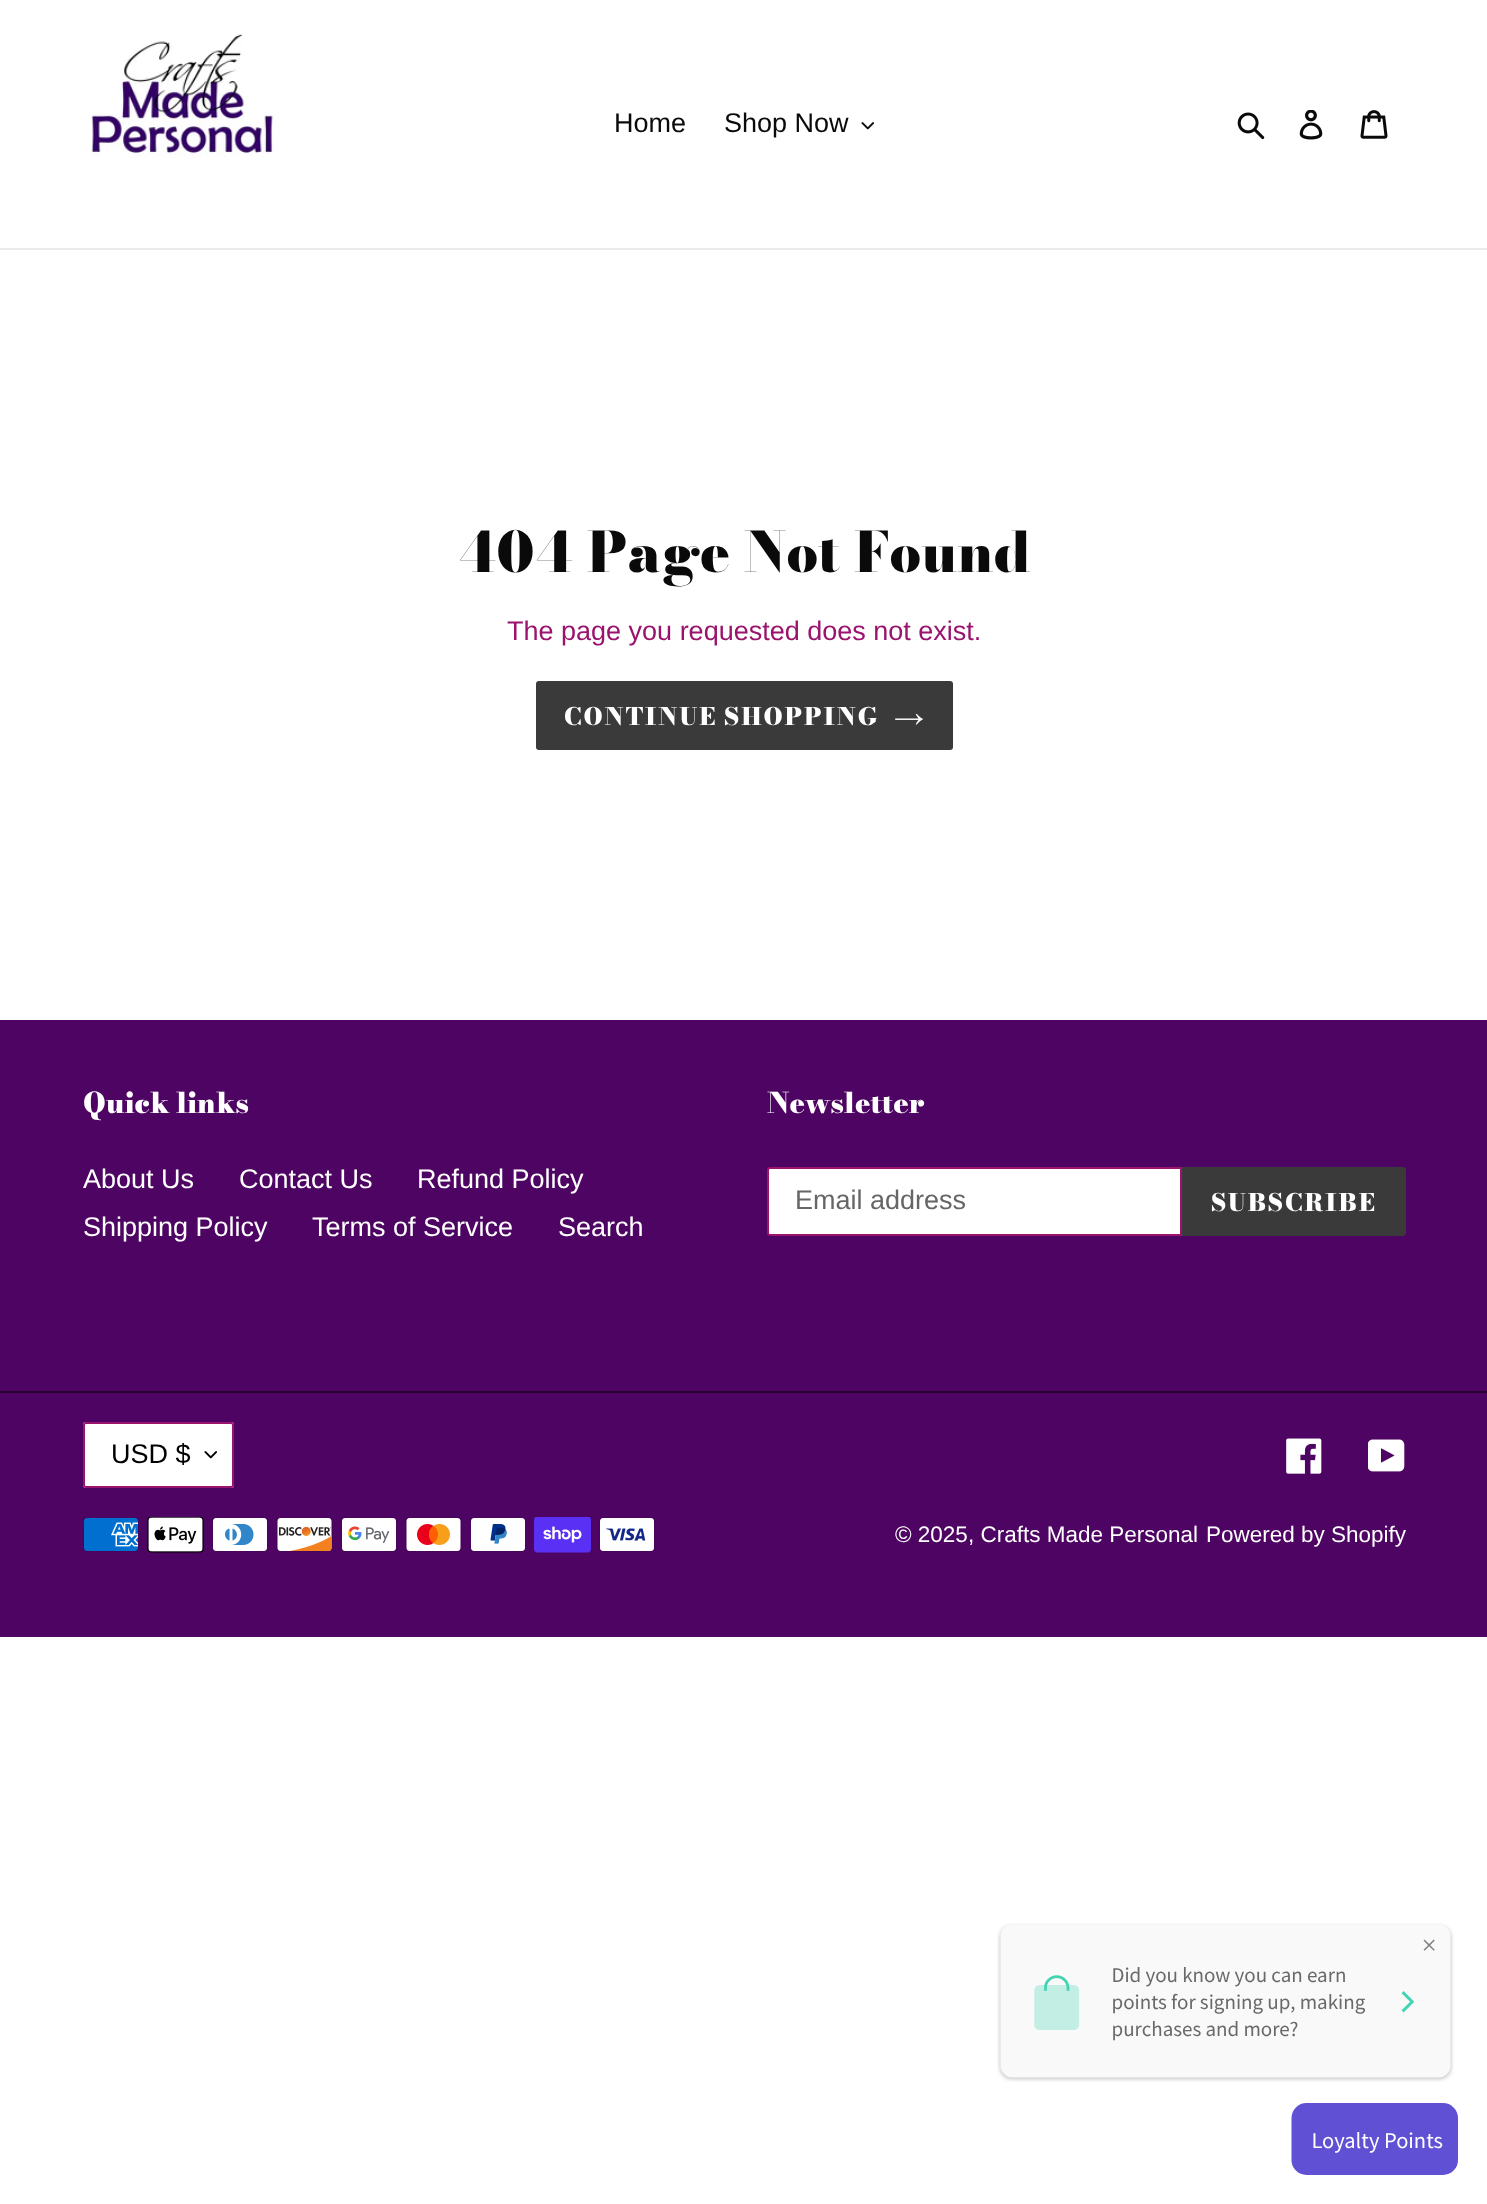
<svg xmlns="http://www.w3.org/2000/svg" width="1487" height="2204">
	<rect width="100%" height="100%" fill="#FFFFFF" />
	<rect x="0" y="248" width="1487" height="2" fill="#EBEBEB" />
	<image x="91" y="34" width="184" height="124" href="assets/img1.png" />
	<g font-family="Liberation Sans" font-size="27" fill="#0A0A0A">
		<text x="614" y="132">Home</text>
		<text x="724" y="132">Shop Now</text>
	</g>
	<image x="861" y="122" width="13" height="8" href="assets/img2.png" />
	<image x="1237" y="112" width="28" height="28" href="assets/img3.png" />
	<image x="1299" y="110" width="24" height="30" href="assets/img4.png" />
	<image x="1360" y="110" width="28" height="29" href="assets/img5.png" />
	<text x="458" y="572" font-family="Bodoni Moda" font-size="55.5" font-weight="900" fill="#0A0A0A">404 Page Not Found</text>
	<text x="507" y="640" font-family="Liberation Sans" font-size="27" fill="#9A136D">The page you requested does not exist.</text>
	<rect x="536" y="681" width="417" height="69" rx="3" fill="#3A3A3A" />
	<text x="564" y="725" word-spacing="-1" font-family="'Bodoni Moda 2'" font-size="24" font-weight="900" letter-spacing="1.9" fill="#FFFFFF">CONTINUE SHOPPING</text>
	<image x="895" y="713" width="28" height="12" href="assets/img6.png" />
	<rect x="0" y="1020" width="1487" height="617" fill="#4E0462" />
	<text x="83" y="1113" word-spacing="-1" font-family="'Bodoni Moda 2'" font-size="28.5" font-weight="900" fill="#FFFFFF">Quick links</text>
	<g font-family="Liberation Sans" font-size="27" fill="#FFFFFF">
		<text x="83" y="1188">About Us</text>
		<text x="239" y="1188">Contact Us</text>
		<text x="417" y="1188">Refund Policy</text>
		<text x="83" y="1236">Shipping Policy</text>
		<text x="312" y="1236">Terms of Service</text>
		<text x="558" y="1236">Search</text>
	</g>
	<text x="767" y="1113" font-family="'Bodoni Moda 2'" font-size="28.5" font-weight="900" fill="#FFFFFF">Newsletter</text>
	<path d="M770 1168H1181V1235H770C769 1235 768 1234 768 1233V1170C768 1169 769 1168 770 1168Z" fill="#FFFFFF" stroke="#9A136D" stroke-width="2" />
	<text x="795" y="1209" font-family="Liberation Sans" font-size="27" fill="#666666">Email address</text>
	<path d="M1182 1167H1403C1404.5 1167 1406 1168.5 1406 1170V1233C1406 1234.5 1404.5 1236 1403 1236H1182Z" fill="#3A3A3A" />
	<text x="1211" y="1211" font-family="'Bodoni Moda 2'" font-size="24" font-weight="900" letter-spacing="1.9" fill="#FFFFFF">SUBSCRIBE</text>
	<rect x="0" y="1391" width="1487" height="2" fill="#270231" />
	<rect x="83" y="1422" width="151" height="66" rx="3" fill="#FFFFFF" />
	<image x="204" y="1451" width="13" height="8" href="assets/img7.png" />
	<rect x="84" y="1423" width="149" height="64" rx="2" fill="none" stroke="#9A136D" stroke-width="2" />
	<text x="111" y="1463" font-family="Liberation Sans" font-size="27" fill="#000000">USD $</text>
	<image x="1286" y="1438" width="36" height="36" href="assets/img8.png" />
	<image x="1368" y="1439" width="37" height="33" href="assets/img9.png" />
	<image x="83" y="1517" width="56" height="35" href="assets/img10.png" />
	<image x="147" y="1517" width="57" height="36" href="assets/img11.png" />
	<image x="212" y="1517" width="56" height="35" href="assets/img12.png" />
	<image x="276" y="1517" width="57" height="35" href="assets/img13.png" />
	<image x="341" y="1517" width="56" height="35" href="assets/img14.png" />
	<image x="405" y="1517" width="57" height="35" href="assets/img15.png" />
	<image x="470" y="1517" width="56" height="35" href="assets/img16.png" />
	<image x="534" y="1517" width="57" height="36" href="assets/img17.png" />
	<image x="599" y="1517" width="56" height="35" href="assets/img18.png" />
	<g font-family="Liberation Sans" font-size="22.5" fill="#FFFFFF">
		<text x="895" y="1542">© 2025, Crafts Made Personal</text>
		<text x="1206" y="1542">Powered by Shopify</text>
	</g>
	<image x="997" y="1923" width="457" height="159" href="assets/img19.png" />
	<image x="1291" y="2103" width="167" height="72" href="assets/img20.png" />
</svg>
